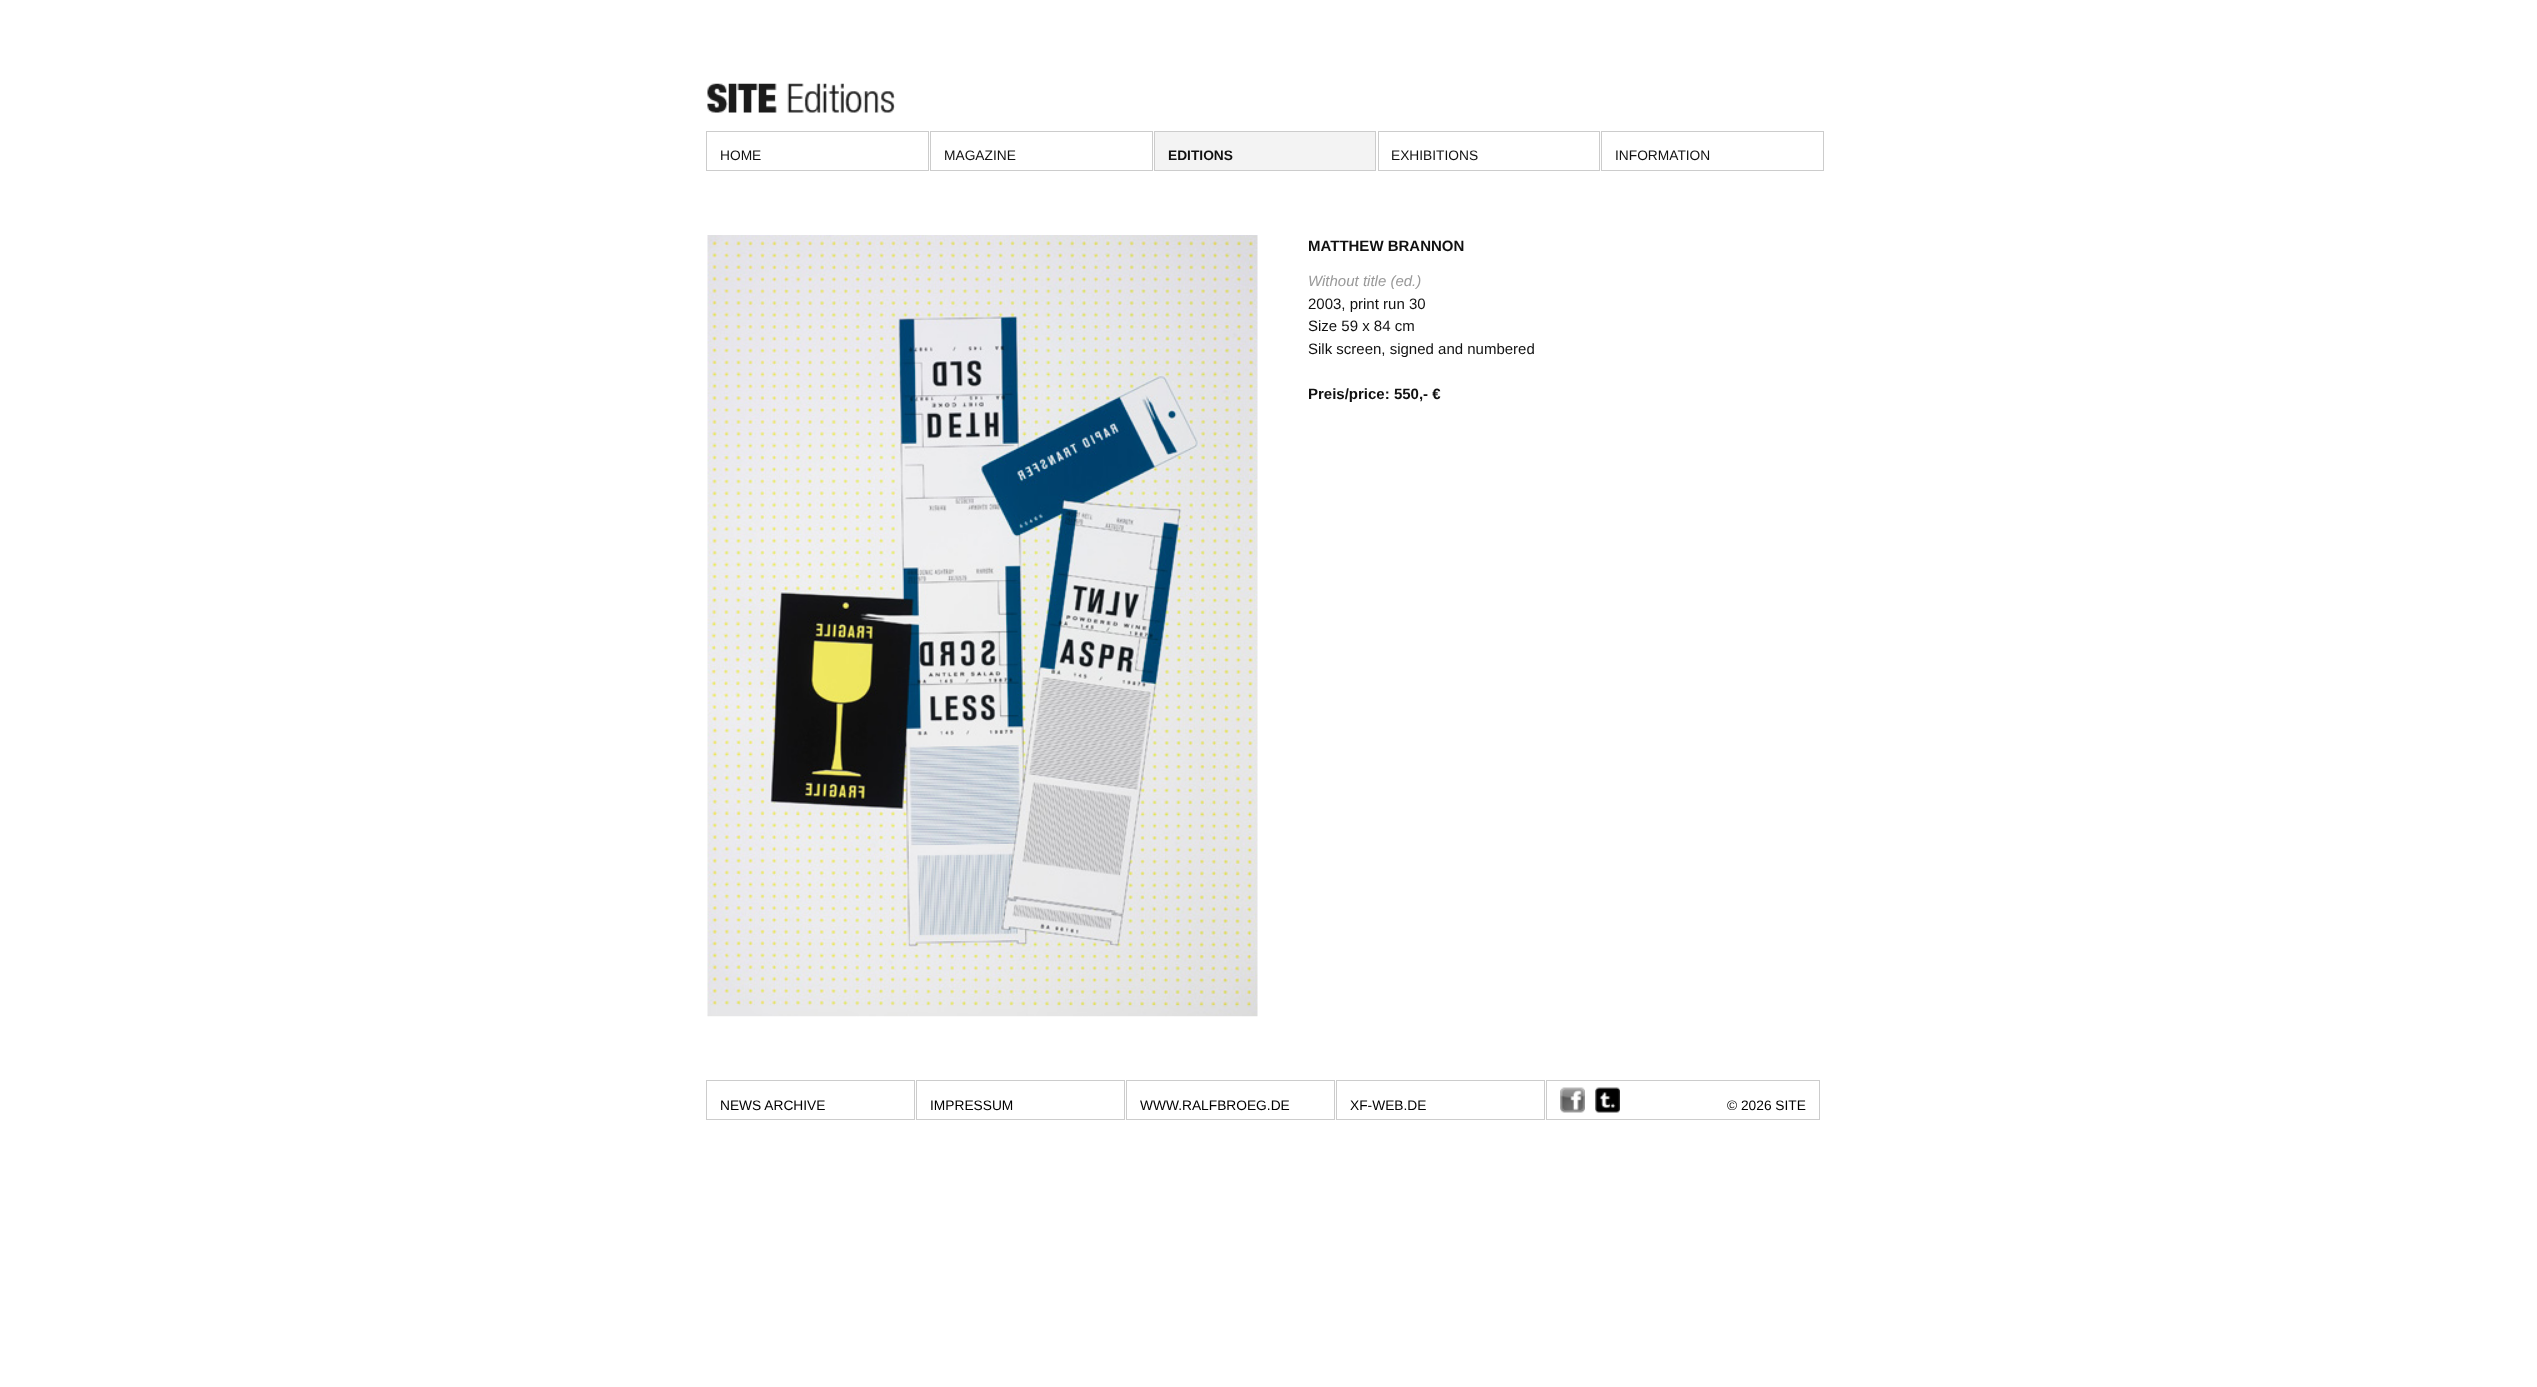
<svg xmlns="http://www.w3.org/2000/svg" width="2537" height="1387">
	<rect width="100%" height="100%" fill="#FFFFFF" />
	<image x="707" y="83" width="188" height="30" href="assets/img1.png" />
	<rect x="706.5" y="131.5" width="222" height="39" fill="none" stroke="#CCCCCC" />
	<text x="720" y="160" font-family="Liberation Sans" font-size="13.75" fill="#111111">HOME</text>
	<rect x="930.5" y="131.5" width="222" height="39" fill="none" stroke="#CCCCCC" />
	<text x="944" y="160" font-family="Liberation Sans" font-size="13.75" fill="#111111">MAGAZINE</text>
	<rect x="1154.5" y="131.5" width="221" height="39" fill="#F3F3F3" stroke="#CCCCCC" />
	<text x="1168" y="160" font-family="Liberation Sans" font-size="13.75" font-weight="700" fill="#111111">EDITIONS</text>
	<rect x="1378.5" y="131.5" width="221" height="39" fill="none" stroke="#CCCCCC" />
	<text x="1391" y="160" font-family="Liberation Sans" font-size="13.75" fill="#111111">EXHIBITIONS</text>
	<rect x="1601.5" y="131.5" width="222" height="39" fill="none" stroke="#CCCCCC" />
	<text x="1615" y="160" font-family="Liberation Sans" font-size="13.75" fill="#111111">INFORMATION</text>
	<image x="707" y="235" width="551" height="782" href="assets/img2.png" />
	<text x="1308" y="251" font-family="Liberation Sans" font-size="15" font-weight="700" fill="#111111">MATTHEW BRANNON</text>
	<text x="1308" y="286" font-family="Liberation Sans" font-size="15" font-style="italic" fill="#999999">Without title (ed.)</text>
	<g font-family="Liberation Sans" font-size="15" fill="#111111">
		<text x="1308" y="309">2003, print run 30</text>
		<text x="1308" y="331">Size 59 x 84 cm</text>
		<text x="1308" y="354">Silk screen, signed and numbered</text>
	</g>
	<text x="1308" y="399" font-family="Liberation Sans" font-size="15" font-weight="700" fill="#111111">Preis/price: 550,- €</text>
	<rect x="706.5" y="1080.5" width="208" height="39" fill="none" stroke="#CCCCCC" />
	<text x="720" y="1110" font-family="Liberation Sans" font-size="13.75" fill="#000000">NEWS ARCHIVE</text>
	<rect x="916.5" y="1080.5" width="208" height="39" fill="none" stroke="#CCCCCC" />
	<text x="930" y="1110" font-family="Liberation Sans" font-size="13.75" fill="#000000">IMPRESSUM</text>
	<rect x="1126.5" y="1080.5" width="208" height="39" fill="none" stroke="#CCCCCC" />
	<text x="1140" y="1110" font-family="Liberation Sans" font-size="13.75" fill="#000000">WWW.RALFBROEG.DE</text>
	<rect x="1336.5" y="1080.5" width="208" height="39" fill="none" stroke="#CCCCCC" />
	<text x="1350" y="1110" font-family="Liberation Sans" font-size="13.75" fill="#000000">XF-WEB.DE</text>
	<rect x="1546.5" y="1080.5" width="273" height="39" fill="none" stroke="#CCCCCC" />
	<image x="1560" y="1087" width="25" height="26" href="assets/img3.png" />
	<image x="1595" y="1087" width="25" height="26" href="assets/img4.png" />
	<text x="1727" y="1110" font-family="Liberation Sans" font-size="13.75" fill="#000000">© 2026 SITE</text>
</svg>
